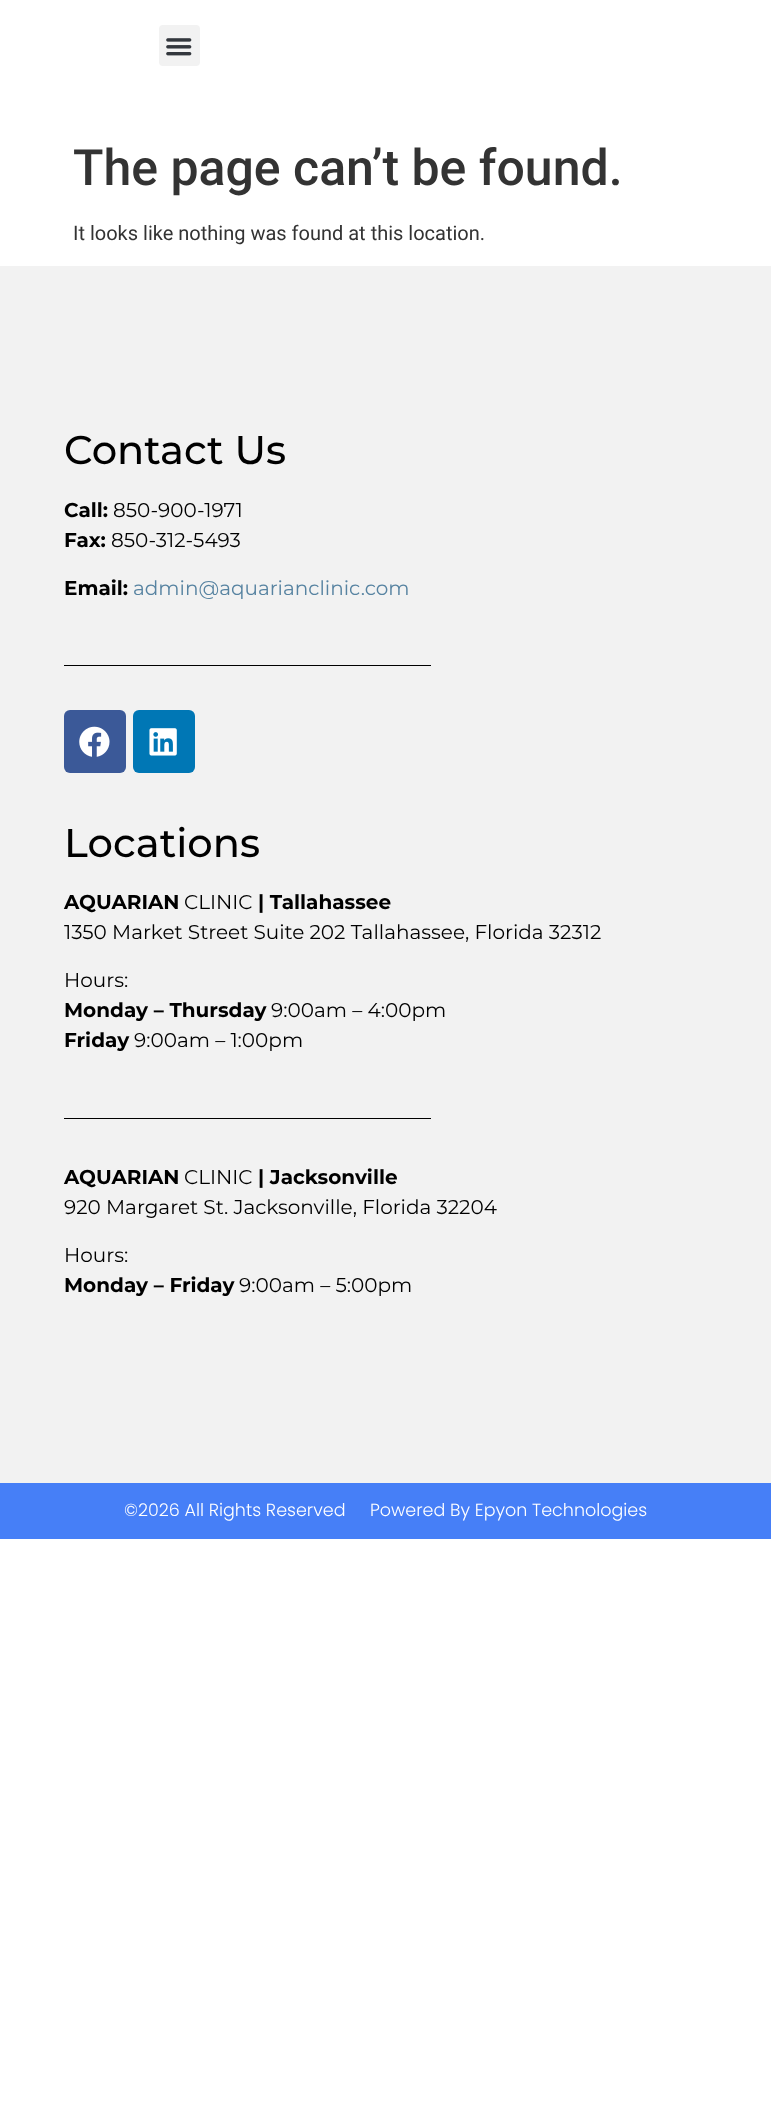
<svg xmlns="http://www.w3.org/2000/svg" width="771" height="2114">
	<rect width="100%" height="100%" fill="#FFFFFF" />
	<rect x="159" y="25" width="41" height="41" rx="4" fill="#F2F2F2" />
	<image x="166" y="38" width="26" height="18" href="assets/img1.png" />
	<text x="73" y="185" font-family="Roboto" font-size="50" font-weight="500" fill="#333333">The page can’t be found.</text>
	<text x="73" y="240" font-family="Roboto" font-size="20" fill="#333333">It looks like nothing was found at this location.</text>
	<rect x="0" y="266" width="771" height="1217" fill="#F2F2F2" />
	<text x="64" y="464" font-family="Montserrat" font-size="40" font-weight="500" fill="#000000">Contact Us</text>
	<text x="64" y="517" font-family="Montserrat" font-size="20" font-weight="700" fill="#000000">Call:</text>
	<text x="113" y="517" font-family="Montserrat" font-size="20" fill="#000000">850-900-1971</text>
	<text x="64" y="547" font-family="Montserrat" font-size="20" font-weight="700" fill="#000000">Fax:</text>
	<text x="111" y="547" font-family="Montserrat" font-size="20" fill="#000000">850-312-5493</text>
	<text x="64" y="595" font-family="Montserrat" font-size="20" font-weight="700" fill="#000000">Email:</text>
	<text x="133" y="595" font-family="Montserrat" font-size="20" fill="#5783A1">admin@aquarianclinic.com</text>
	<rect x="64" y="665" width="367" height="1" fill="#000000" />
	<rect x="64" y="710" width="62" height="63" rx="6" fill="#3B5998" />
	<image x="79" y="726" width="31" height="31" href="assets/img2.png" />
	<rect x="133" y="710" width="62" height="63" rx="6" fill="#0077B5" />
	<image x="149" y="728" width="28" height="28" href="assets/img3.png" />
	<text x="64" y="857" font-family="Montserrat" font-size="40" font-weight="500" fill="#000000">Locations</text>
	<text x="64" y="909" font-family="Montserrat" font-size="20" font-weight="700" fill="#000000">AQUARIAN</text>
	<text x="184" y="909" font-family="Montserrat" font-size="20" fill="#000000">CLINIC</text>
	<text x="258" y="909" font-family="Montserrat" font-size="20" font-weight="700" fill="#000000">| Tallahassee</text>
	<g font-family="Montserrat" font-size="20" fill="#000000">
		<text x="64" y="939">1350 Market Street Suite 202 Tallahassee, Florida 32312</text>
		<text x="64" y="987">Hours:</text>
	</g>
	<text x="64" y="1017" font-family="Montserrat" font-size="20" font-weight="700" fill="#000000">Monday – Thursday</text>
	<text x="271" y="1017" font-family="Montserrat" font-size="20" fill="#000000">9:00am – 4:00pm</text>
	<text x="64" y="1047" font-family="Montserrat" font-size="20" font-weight="700" fill="#000000">Friday</text>
	<text x="134" y="1047" font-family="Montserrat" font-size="20" fill="#000000">9:00am – 1:00pm</text>
	<rect x="64" y="1118" width="367" height="1" fill="#000000" />
	<text x="64" y="1184" font-family="Montserrat" font-size="20" font-weight="700" fill="#000000">AQUARIAN</text>
	<text x="184" y="1184" font-family="Montserrat" font-size="20" fill="#000000">CLINIC</text>
	<text x="258" y="1184" font-family="Montserrat" font-size="20" font-weight="700" fill="#000000">| Jacksonville</text>
	<g font-family="Montserrat" font-size="20" fill="#000000">
		<text x="64" y="1214">920 Margaret St. Jacksonville, Florida 32204</text>
		<text x="64" y="1262">Hours:</text>
	</g>
	<text x="64" y="1292" font-family="Montserrat" font-size="20" font-weight="700" fill="#000000">Monday – Friday</text>
	<text x="239" y="1292" font-family="Montserrat" font-size="20" fill="#000000">9:00am – 5:00pm</text>
	<rect x="0" y="1483" width="771" height="56" fill="#467FF7" />
	<g font-family="Poppins" font-size="17.5" font-weight="300" fill="#FFFFFF">
		<text x="124" y="1516">©2026 All Rights Reserved</text>
		<text x="370" y="1516">Powered By Epyon Technologies</text>
	</g>
</svg>
